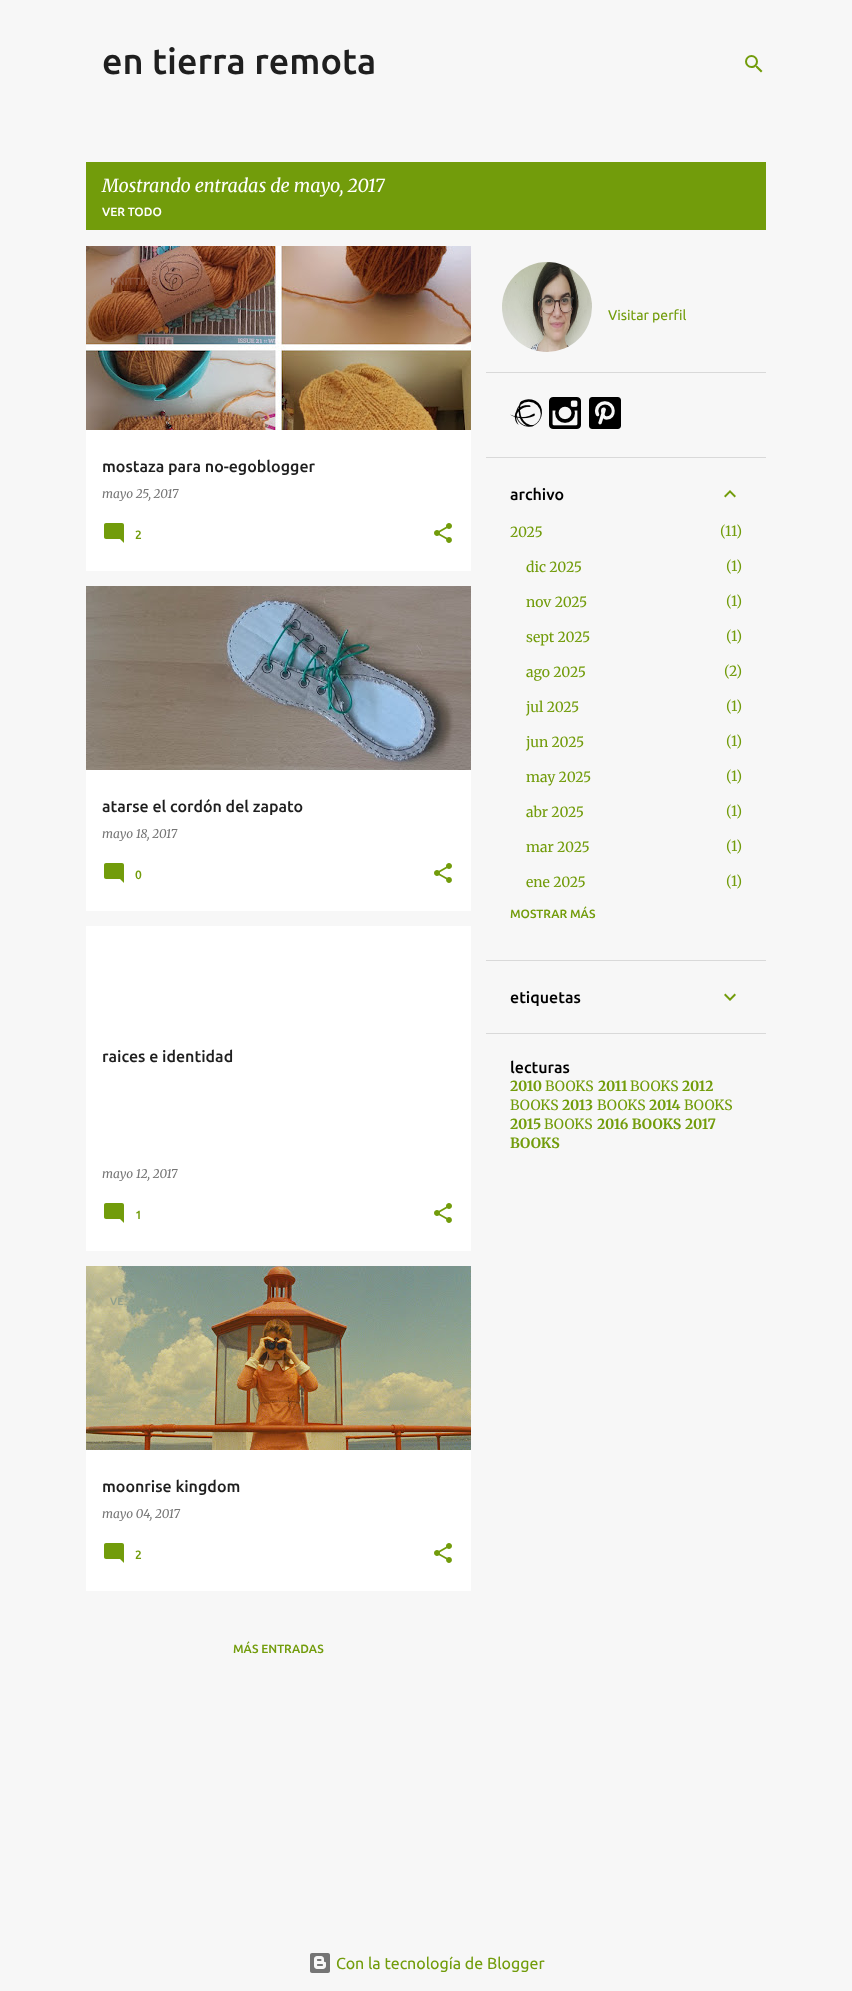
<svg xmlns="http://www.w3.org/2000/svg" width="852" height="1991">
	<rect width="100%" height="100%" fill="#F7F7F7" />
	<text x="102" y="74" font-family="Ubuntu" font-size="36" font-weight="500" fill="#1F1F1F">en tierra remota</text>
	<image x="745" y="55" width="18" height="18" href="assets/img1.png" />
	<rect x="86" y="162" width="680" height="68" fill="#729C0B" />
	<text x="102" y="192" font-family="Merriweather" font-size="18" font-style="italic" fill="#FFFFFF">Mostrando entradas de mayo, 2017</text>
	<text x="102" y="216" font-family="Ubuntu" font-size="12" font-weight="500" fill="#FFFFFF">VER TODO</text>
	<rect x="86" y="430" width="385" height="141" fill="#FFFFFF" />
	<image x="86" y="246" width="385" height="184" href="assets/img2.png" />
	<text x="110" y="285" font-family="Ubuntu" font-size="10.5" font-weight="500" fill="#8F573F">KNITTING</text>
	<text x="102" y="498" font-family="Merriweather" font-size="12" font-style="italic" fill="#757575">mayo 25, 2017</text>
	<text x="102" y="472" font-family="Ubuntu" font-size="16" font-weight="500" fill="#1F1F1F">mostaza para no-egoblogger</text>
	<image x="104" y="523" width="20" height="20" href="assets/img3.png" />
	<text x="135" y="539" font-family="Ubuntu" font-size="12" font-weight="500" fill="#729C0B">2</text>
	<image x="434" y="523" width="18" height="20" href="assets/img4.png" />
	<rect x="86" y="770" width="385" height="141" fill="#FFFFFF" />
	<image x="86" y="586" width="385" height="184" href="assets/img5.png" />
	<text x="102" y="812" font-family="Ubuntu" font-size="16" font-weight="500" fill="#1F1F1F">atarse el cordón del zapato</text>
	<text x="102" y="838" font-family="Merriweather" font-size="12" font-style="italic" fill="#757575">mayo 18, 2017</text>
	<image x="104" y="863" width="20" height="20" href="assets/img3.png" />
	<text x="135" y="879" font-family="Ubuntu" font-size="12" font-weight="500" fill="#729C0B">0</text>
	<image x="434" y="863" width="18" height="20" href="assets/img4.png" />
	<rect x="86" y="926" width="385" height="325" fill="#FFFFFF" />
	<text x="102" y="1062" font-family="Ubuntu" font-size="16" font-weight="500" fill="#1F1F1F">raices e identidad</text>
	<text x="102" y="1178" font-family="Merriweather" font-size="12" font-style="italic" fill="#757575">mayo 12, 2017</text>
	<image x="104" y="1203" width="20" height="20" href="assets/img3.png" />
	<text x="135" y="1219" font-family="Ubuntu" font-size="12" font-weight="500" fill="#729C0B">1</text>
	<image x="434" y="1203" width="18" height="20" href="assets/img4.png" />
	<rect x="86" y="1450" width="385" height="141" fill="#FFFFFF" />
	<image x="86" y="1266" width="385" height="184" href="assets/img6.png" />
	<text x="110" y="1305" font-family="Ubuntu" font-size="10.5" font-weight="500" fill="#8E9F8D">VE</text>
	<text x="102" y="1518" font-family="Merriweather" font-size="12" font-style="italic" fill="#757575">mayo 04, 2017</text>
	<text x="102" y="1492" font-family="Ubuntu" font-size="16" font-weight="500" fill="#1F1F1F">moonrise kingdom</text>
	<image x="104" y="1543" width="20" height="20" href="assets/img3.png" />
	<text x="135" y="1559" font-family="Ubuntu" font-size="12" font-weight="500" fill="#729C0B">2</text>
	<image x="434" y="1543" width="18" height="20" href="assets/img4.png" />
	<text x="233" y="1653" font-family="Ubuntu" font-size="12" font-weight="500" fill="#729C0B">MÁS ENTRADAS</text>
	<image x="502" y="262" width="90" height="90" href="assets/img7.png" />
	<text x="608" y="320" font-family="Ubuntu" font-size="14" fill="#729C0B">Visitar perfil</text>
	<rect x="486" y="372" width="280" height="1" fill="#D9D9D9" />
	<image x="510" y="399" width="32" height="28" href="assets/img8.png" />
	<image x="549" y="397" width="32" height="32" href="assets/img9.png" />
	<image x="589" y="397" width="32" height="32" href="assets/img10.png" />
	<rect x="486" y="457" width="280" height="1" fill="#D9D9D9" />
	<text x="510" y="500" font-family="Ubuntu" font-size="16" font-weight="500" fill="#000000">archivo</text>
	<image x="724" y="490" width="12" height="8" href="assets/img11.png" />
	<g font-family="Merriweather" font-size="14" fill="#729C0B">
		<text x="510" y="537">2025</text>
		<text x="720" y="536">(</text>
		<text x="725" y="536">11</text>
		<text x="736" y="536">)</text>
		<text x="526" y="572">dic 2025</text>
		<text x="726" y="571">(</text>
		<text x="731" y="571">1</text>
		<text x="736" y="571">)</text>
		<text x="526" y="607">nov 2025</text>
		<text x="726" y="606">(</text>
		<text x="731" y="606">1</text>
		<text x="736" y="606">)</text>
		<text x="526" y="642">sept 2025</text>
		<text x="726" y="641">(</text>
		<text x="731" y="641">1</text>
		<text x="736" y="641">)</text>
		<text x="526" y="677">ago 2025</text>
		<text x="724" y="676">(</text>
		<text x="729" y="676">2</text>
		<text x="736" y="676">)</text>
		<text x="526" y="712">jul 2025</text>
		<text x="726" y="711">(</text>
		<text x="731" y="711">1</text>
		<text x="736" y="711">)</text>
		<text x="526" y="747">jun 2025</text>
		<text x="726" y="746">(</text>
		<text x="731" y="746">1</text>
		<text x="736" y="746">)</text>
		<text x="526" y="782">may 2025</text>
		<text x="726" y="781">(</text>
		<text x="731" y="781">1</text>
		<text x="736" y="781">)</text>
		<text x="526" y="817">abr 2025</text>
		<text x="726" y="816">(</text>
		<text x="731" y="816">1</text>
		<text x="736" y="816">)</text>
		<text x="526" y="852">mar 2025</text>
		<text x="726" y="851">(</text>
		<text x="731" y="851">1</text>
		<text x="736" y="851">)</text>
		<text x="526" y="887">ene 2025</text>
		<text x="726" y="886">(</text>
		<text x="731" y="886">1</text>
		<text x="736" y="886">)</text>
	</g>
	<text x="510" y="918" font-family="Ubuntu" font-size="12" font-weight="500" fill="#729C0B">MOSTRAR MÁS</text>
	<rect x="486" y="960" width="280" height="1" fill="#D9D9D9" />
	<text x="510" y="1003" font-family="Ubuntu" font-size="16" font-weight="500" fill="#000000">etiquetas</text>
	<image x="724" y="993" width="12" height="8" href="assets/img12.png" />
	<rect x="486" y="1033" width="280" height="1" fill="#D9D9D9" />
	<text x="510" y="1073" font-family="Ubuntu" font-size="16" font-weight="500" fill="#000000">lecturas</text>
	<text x="510" y="1091" font-family="Merriweather" font-size="14" font-weight="700" fill="#729C0B">2010</text>
	<text x="545" y="1091" font-family="Merriweather" font-size="14" fill="#729C0B">BOOKS</text>
	<text x="598" y="1091" font-family="Merriweather" font-size="14" font-weight="700" fill="#729C0B">2011</text>
	<text x="630" y="1091" font-family="Merriweather" font-size="14" fill="#729C0B">BOOKS</text>
	<text x="682" y="1091" font-family="Merriweather" font-size="14" font-weight="700" fill="#729C0B">2012</text>
	<text x="510" y="1110" font-family="Merriweather" font-size="14" fill="#729C0B">BOOKS</text>
	<text x="562" y="1110" font-family="Merriweather" font-size="14" font-weight="700" fill="#729C0B">2013</text>
	<text x="597" y="1110" font-family="Merriweather" font-size="14" fill="#729C0B">BOOKS</text>
	<text x="649" y="1110" font-family="Merriweather" font-size="14" font-weight="700" fill="#729C0B">2014</text>
	<text x="684" y="1110" font-family="Merriweather" font-size="14" fill="#729C0B">BOOKS</text>
	<text x="510" y="1129" font-family="Merriweather" font-size="14" font-weight="700" fill="#729C0B">2015</text>
	<text x="544" y="1129" font-family="Merriweather" font-size="14" fill="#729C0B">BOOKS</text>
	<g font-family="Merriweather" font-size="14" font-weight="700" fill="#729C0B">
		<text x="597" y="1129">2016 BOOKS</text>
		<text x="685" y="1129">2017</text>
		<text x="510" y="1148">BOOKS</text>
	</g>
	<image x="310" y="1953" width="20" height="20" href="assets/img13.png" />
	<text x="336" y="1969" font-family="Ubuntu" font-size="16" fill="#729C0B">Con la tecnología de Blogger</text>
</svg>
